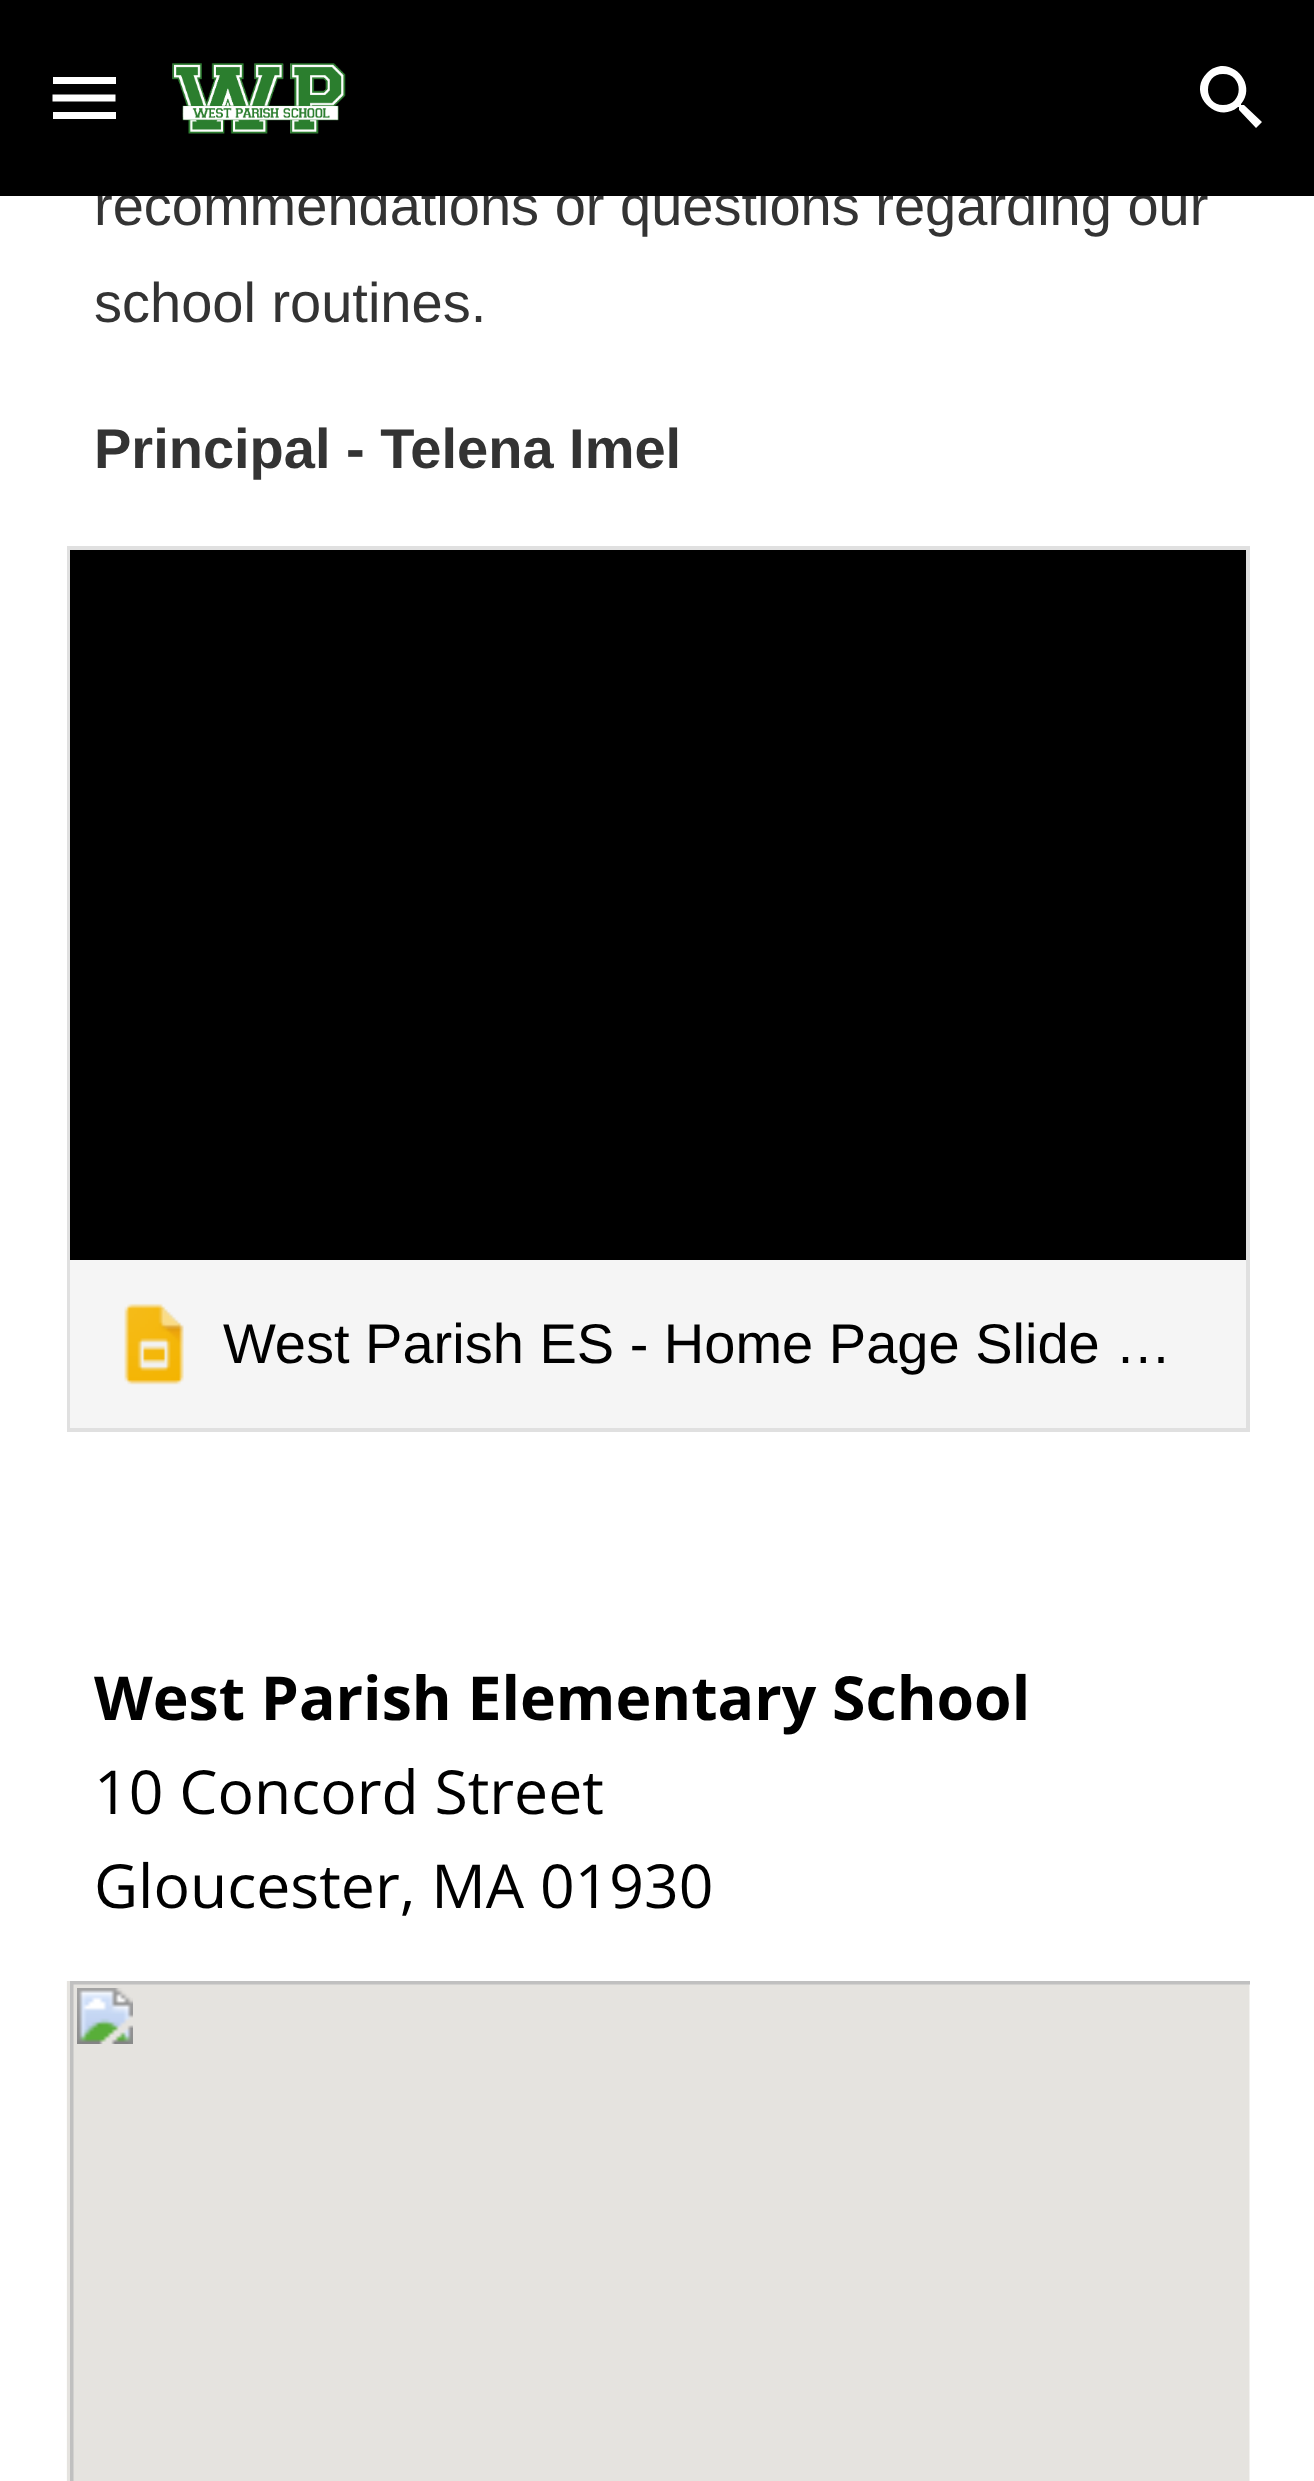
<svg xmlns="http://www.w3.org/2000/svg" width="1314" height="2481">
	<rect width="100%" height="100%" fill="#FFFFFF" />
	<text x="94" y="225" font-family="Liberation Sans" font-size="56" fill="#333333">recommendations or questions regarding our</text>
	<rect x="0" y="0" width="1314" height="196" fill="#000000" />
	<image x="172" y="63" width="174" height="71" href="assets/img1.png" />
	<path d="M1244 105H1241V104C1259 83 1228 52 1207 73C1186 94 1217 125 1238 107H1239V110L1256 128L1262 122ZM1223 105C1203 105 1203 74 1223 74C1244 74 1244 105 1223 105Z" fill="#FFFFFF" />
	<rect x="53" y="77" width="63" height="7" fill="#FFFFFF" />
	<path d="M52.5 98H115.5" fill="none" stroke="#FFFFFF" stroke-width="7" />
	<rect x="53" y="112" width="63" height="7" fill="#FFFFFF" />
	<text x="94" y="322" font-family="Liberation Sans" font-size="56" fill="#333333">school routines.</text>
	<text x="94" y="468" font-family="Liberation Sans" font-size="56" font-weight="700" fill="#333333">Principal - Telena Imel</text>
	<rect x="69" y="548" width="1179" height="882" fill="none" stroke="#E0E0E0" stroke-width="4" />
	<rect x="70" y="550" width="1176" height="710" fill="#000000" />
	<rect x="70" y="1260" width="1176" height="168" fill="#F5F5F5" />
	<image x="124" y="1303" width="60" height="82" href="assets/img2.png" />
	<text x="223" y="1363" font-family="Liberation Sans" font-size="56" fill="#000000">West Parish ES - Home Page Slide …</text>
	<text x="94" y="1720" font-family="Open Sans" font-size="60.7" font-weight="700" fill="#000000">West Parish Elementary School</text>
	<g font-family="Open Sans" font-size="60.7" fill="#000000">
		<text x="94" y="1814">10 Concord Street</text>
		<text x="94" y="1908">Gloucester, MA 01930</text>
	</g>
	<image x="66" y="1981" width="1184" height="500" href="assets/img3.png" />
</svg>
